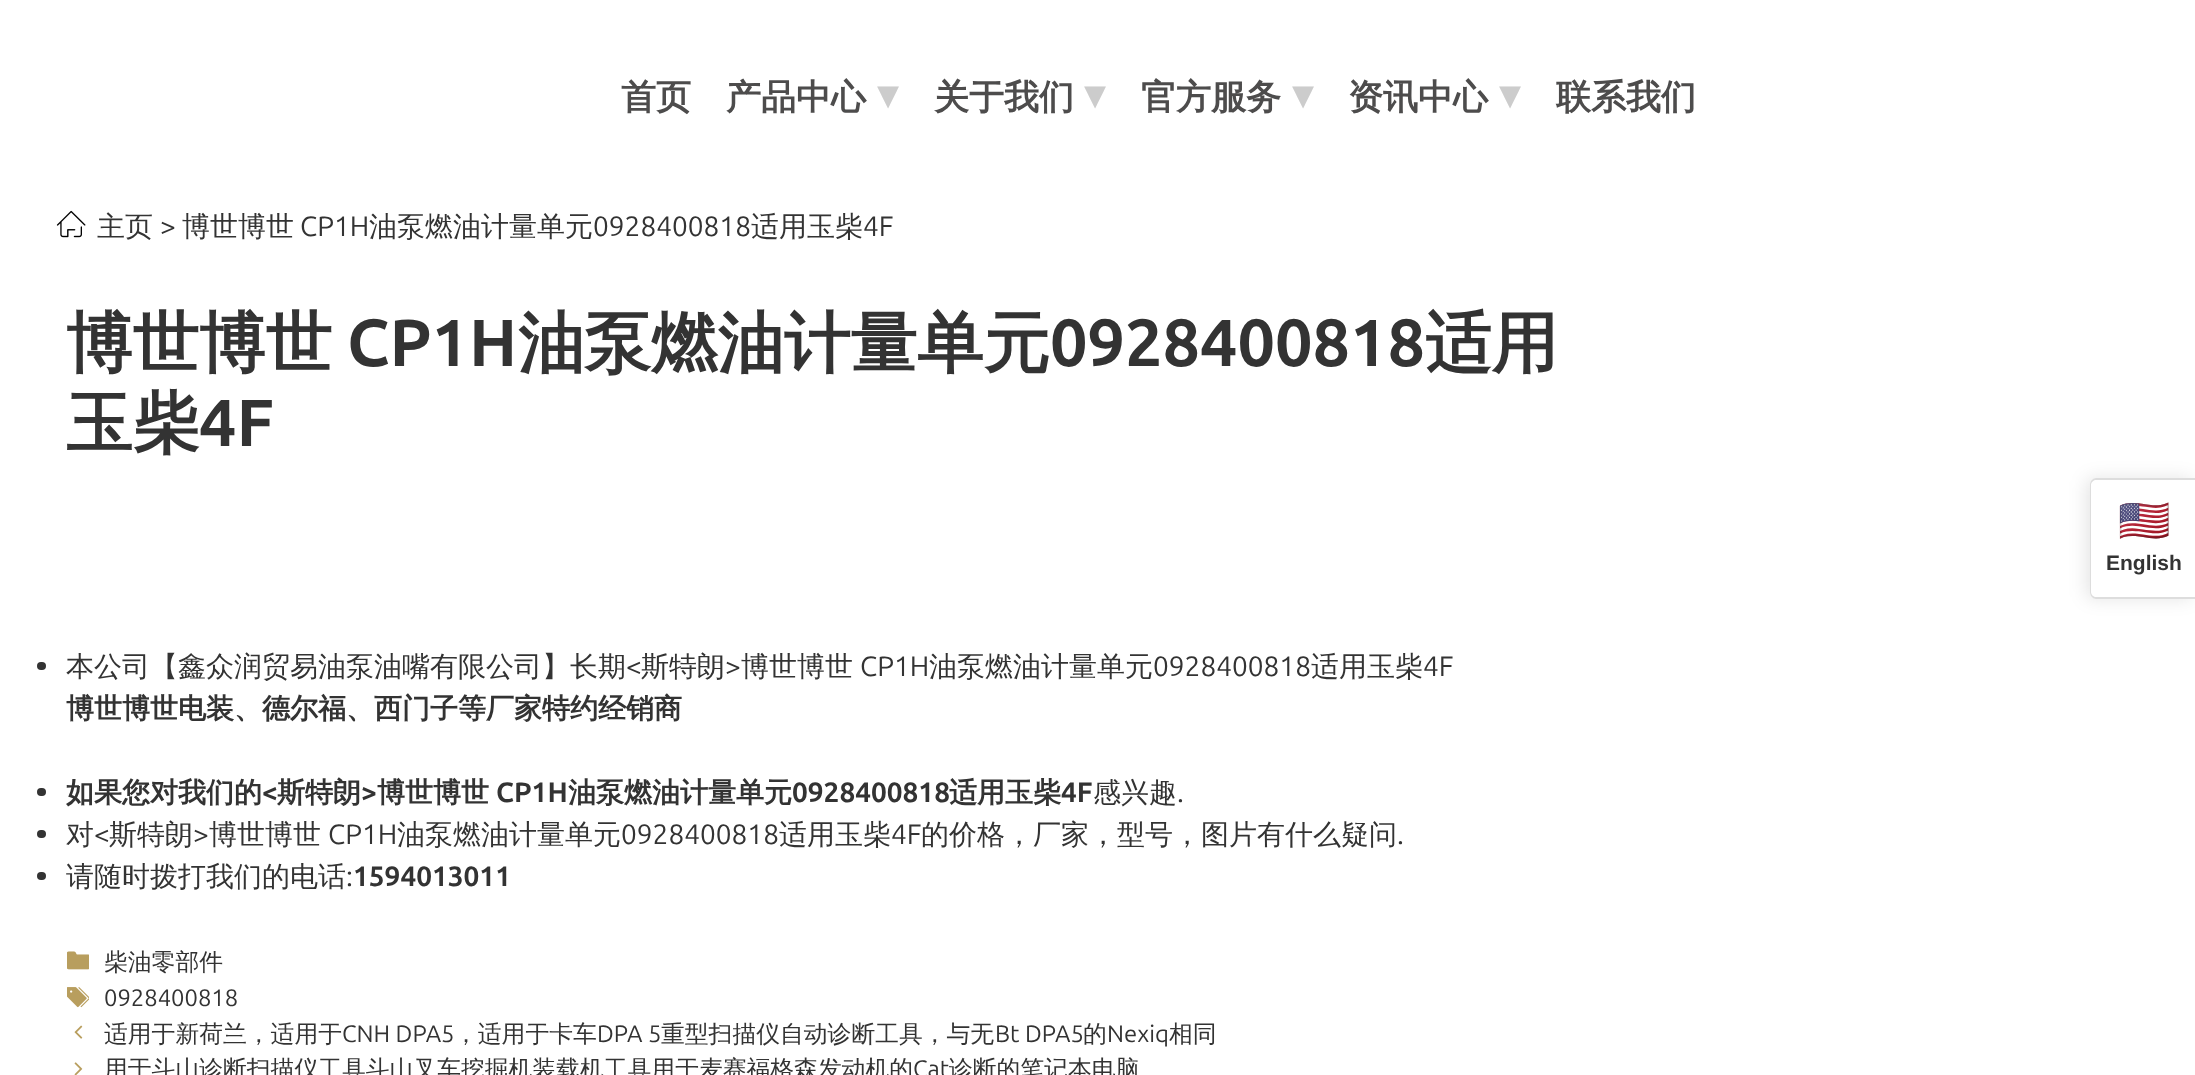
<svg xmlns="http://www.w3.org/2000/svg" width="2195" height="1075">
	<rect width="100%" height="100%" fill="#FFFFFF" />
	<g font-family="WenQuanYi Zen Hei" font-size="35" font-weight="700" fill="#4D4C4C">
		<text x="621" y="109">首页</text>
		<text x="726" y="109">产品中心</text>
	</g>
	<text x="877" y="109" font-family="DejaVu Sans" font-size="44" fill="#CCCCCC">▾</text>
	<text x="934" y="109" font-family="WenQuanYi Zen Hei" font-size="35" font-weight="700" fill="#4D4C4C">关于我们</text>
	<text x="1084" y="109" font-family="DejaVu Sans" font-size="44" fill="#CCCCCC">▾</text>
	<text x="1141" y="109" font-family="WenQuanYi Zen Hei" font-size="35" font-weight="700" fill="#4D4C4C">官方服务</text>
	<text x="1292" y="109" font-family="DejaVu Sans" font-size="44" fill="#CCCCCC">▾</text>
	<text x="1348" y="109" font-family="WenQuanYi Zen Hei" font-size="35" font-weight="700" fill="#4D4C4C">资讯中心</text>
	<text x="1499" y="109" font-family="DejaVu Sans" font-size="44" fill="#CCCCCC">▾</text>
	<text x="1556" y="109" font-family="WenQuanYi Zen Hei" font-size="35" font-weight="700" fill="#4D4C4C">联系我们</text>
	<image x="56" y="210" width="30" height="28" href="assets/img1.png" />
	<text x="97" y="236" font-family="WenQuanYi Zen Hei" font-size="28" font-weight="500" fill="#333333">主页</text>
	<text x="160" y="236" font-family="Ubuntu" font-size="28" fill="#333333">&gt;</text>
	<text x="182" y="236" font-family="WenQuanYi Zen Hei" font-size="28" font-weight="500" fill="#333333">博世博世</text>
	<text x="300" y="236" font-family="Ubuntu" font-size="28" fill="#333333">CP1H</text>
	<text x="369" y="236" font-family="WenQuanYi Zen Hei" font-size="28" font-weight="500" fill="#333333">油泵燃油计量单元</text>
	<text x="593" y="236" font-family="Ubuntu" font-size="28" fill="#333333">0928400818</text>
	<text x="751" y="236" font-family="WenQuanYi Zen Hei" font-size="28" font-weight="500" fill="#333333">适用玉柴</text>
	<text x="863" y="236" font-family="Ubuntu" font-size="28" fill="#333333">4F</text>
	<text x="66" y="366" font-family="WenQuanYi Zen Hei" font-size="66.5" font-weight="700" fill="#333333">博世博世</text>
	<text x="347" y="366" font-family="Ubuntu" font-size="66.5" font-weight="700" fill="#333333">CP1H</text>
	<text x="518" y="366" font-family="WenQuanYi Zen Hei" font-size="66.5" font-weight="700" fill="#333333">油泵燃油计量单元</text>
	<text x="1050" y="366" font-family="Ubuntu" font-size="66.5" font-weight="700" fill="#333333">0928400818</text>
	<g font-family="WenQuanYi Zen Hei" font-size="66.5" font-weight="700" fill="#333333">
		<text x="1425" y="366">适用</text>
		<text x="66" y="446">玉柴</text>
	</g>
	<text x="199" y="446" font-family="Ubuntu" font-size="66.5" font-weight="700" fill="#333333">4F</text>
	<rect x="37" y="662" width="9" height="8" rx="4" fill="#333333" />
	<text x="66" y="676" font-family="WenQuanYi Zen Hei" font-size="28" font-weight="500" fill="#333333">本公司【鑫众润贸易油泵油嘴有限公司】长期</text>
	<text x="626" y="676" font-family="Ubuntu" font-size="28" fill="#333333">&lt;</text>
	<text x="641" y="676" font-family="WenQuanYi Zen Hei" font-size="28" font-weight="500" fill="#333333">斯特朗</text>
	<text x="725" y="676" font-family="Ubuntu" font-size="28" fill="#333333">&gt;</text>
	<text x="741" y="676" font-family="WenQuanYi Zen Hei" font-size="28" font-weight="500" fill="#333333">博世博世</text>
	<text x="860" y="676" font-family="Ubuntu" font-size="28" fill="#333333">CP1H</text>
	<text x="929" y="676" font-family="WenQuanYi Zen Hei" font-size="28" font-weight="500" fill="#333333">油泵燃油计量单元</text>
	<text x="1153" y="676" font-family="Ubuntu" font-size="28" fill="#333333">0928400818</text>
	<text x="1311" y="676" font-family="WenQuanYi Zen Hei" font-size="28" font-weight="500" fill="#333333">适用玉柴</text>
	<text x="1423" y="676" font-family="Ubuntu" font-size="28" fill="#333333">4F</text>
	<text x="66" y="718" font-family="WenQuanYi Zen Hei" font-size="28" font-weight="700" fill="#333333">博世博世电装、德尔福、西门子等厂家特约经销商</text>
	<rect x="37" y="788" width="9" height="8" rx="4" fill="#333333" />
	<text x="66" y="802" font-family="WenQuanYi Zen Hei" font-size="28" font-weight="700" fill="#333333">如果您对我们的</text>
	<text x="262" y="802" font-family="Ubuntu" font-size="28" font-weight="700" fill="#333333">&lt;</text>
	<text x="277" y="802" font-family="WenQuanYi Zen Hei" font-size="28" font-weight="700" fill="#333333">斯特朗</text>
	<text x="361" y="802" font-family="Ubuntu" font-size="28" font-weight="700" fill="#333333">&gt;</text>
	<text x="377" y="802" font-family="WenQuanYi Zen Hei" font-size="28" font-weight="700" fill="#333333">博世博世</text>
	<text x="496" y="802" font-family="Ubuntu" font-size="28" font-weight="700" fill="#333333">CP1H</text>
	<text x="568" y="802" font-family="WenQuanYi Zen Hei" font-size="28" font-weight="700" fill="#333333">油泵燃油计量单元</text>
	<text x="792" y="802" font-family="Ubuntu" font-size="28" font-weight="700" fill="#333333">0928400818</text>
	<text x="949" y="802" font-family="WenQuanYi Zen Hei" font-size="28" font-weight="700" fill="#333333">适用玉柴</text>
	<text x="1061" y="802" font-family="Ubuntu" font-size="28" font-weight="700" fill="#333333">4F</text>
	<text x="1093" y="802" font-family="WenQuanYi Zen Hei" font-size="28" font-weight="500" fill="#333333">感兴趣</text>
	<text x="1177" y="802" font-family="Ubuntu" font-size="28" fill="#333333">.</text>
	<rect x="37" y="830" width="9" height="8" rx="4" fill="#333333" />
	<text x="66" y="844" font-family="WenQuanYi Zen Hei" font-size="28" font-weight="500" fill="#333333">对</text>
	<text x="94" y="844" font-family="Ubuntu" font-size="28" fill="#333333">&lt;</text>
	<text x="109" y="844" font-family="WenQuanYi Zen Hei" font-size="28" font-weight="500" fill="#333333">斯特朗</text>
	<text x="193" y="844" font-family="Ubuntu" font-size="28" fill="#333333">&gt;</text>
	<text x="209" y="844" font-family="WenQuanYi Zen Hei" font-size="28" font-weight="500" fill="#333333">博世博世</text>
	<text x="328" y="844" font-family="Ubuntu" font-size="28" fill="#333333">CP1H</text>
	<text x="397" y="844" font-family="WenQuanYi Zen Hei" font-size="28" font-weight="500" fill="#333333">油泵燃油计量单元</text>
	<text x="621" y="844" font-family="Ubuntu" font-size="28" fill="#333333">0928400818</text>
	<text x="779" y="844" font-family="WenQuanYi Zen Hei" font-size="28" font-weight="500" fill="#333333">适用玉柴</text>
	<text x="891" y="844" font-family="Ubuntu" font-size="28" fill="#333333">4F</text>
	<text x="921" y="844" font-family="WenQuanYi Zen Hei" font-size="28" font-weight="500" fill="#333333">的价格，厂家，型号，图片有什么疑问</text>
	<text x="1397" y="844" font-family="Ubuntu" font-size="28" fill="#333333">.</text>
	<rect x="37" y="872" width="9" height="8" rx="4" fill="#333333" />
	<text x="66" y="886" font-family="WenQuanYi Zen Hei" font-size="28" font-weight="500" fill="#333333">请随时拨打我们的电话</text>
	<text x="346" y="886" font-family="Ubuntu" font-size="28" fill="#333333">:</text>
	<text x="353" y="886" font-family="Ubuntu" font-size="28" font-weight="700" fill="#333333">1594013011</text>
	<image x="67" y="951" width="22" height="19" href="assets/img2.png" />
	<text x="104" y="970" font-family="WenQuanYi Zen Hei" font-size="23.8" font-weight="500" fill="#333333">柴油零部件</text>
	<image x="67" y="987" width="22" height="21" href="assets/img3.png" />
	<text x="104" y="1006" font-family="Ubuntu" font-size="23.8" fill="#333333">0928400818</text>
	<image x="74" y="1025" width="9" height="14" href="assets/img4.png" />
	<text x="104" y="1042" font-family="WenQuanYi Zen Hei" font-size="23.8" font-weight="500" fill="#333333">适用于新荷兰，适用于</text>
	<text x="342" y="1042" font-family="Ubuntu" font-size="23.8" fill="#333333">CNH DPA5</text>
	<text x="454" y="1042" font-family="WenQuanYi Zen Hei" font-size="23.8" font-weight="500" fill="#333333">，适用于卡车</text>
	<text x="597" y="1042" font-family="Ubuntu" font-size="23.8" fill="#333333">DPA 5</text>
	<text x="661" y="1042" font-family="WenQuanYi Zen Hei" font-size="23.8" font-weight="500" fill="#333333">重型扫描仪自动诊断工具，与无</text>
	<text x="995" y="1042" font-family="Ubuntu" font-size="23.8" fill="#333333">Bt DPA5</text>
	<text x="1083" y="1042" font-family="WenQuanYi Zen Hei" font-size="23.8" font-weight="500" fill="#333333">的</text>
	<text x="1107" y="1042" font-family="Ubuntu" font-size="23.8" fill="#333333">Nexiq</text>
	<text x="1169" y="1042" font-family="WenQuanYi Zen Hei" font-size="23.8" font-weight="500" fill="#333333">相同</text>
	<image x="74" y="1062" width="9" height="13" href="assets/img5.png" />
	<text x="104" y="1077" font-family="WenQuanYi Zen Hei" font-size="23.8" font-weight="500" fill="#333333">用于斗山诊断扫描仪工具斗山叉车挖掘机装载机工具用于麦赛福格森发动机的</text>
	<text x="913" y="1077" font-family="Ubuntu" font-size="23.8" fill="#333333">Cat</text>
	<text x="949" y="1077" font-family="WenQuanYi Zen Hei" font-size="23.8" font-weight="500" fill="#333333">诊断的笔记本电脑</text>
	<rect x="2086" y="478" width="107" height="121" rx="7" fill="#000000" fill-opacity="0.1" filter="blur(9px)" />
	<path d="M2097 478H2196V599H2097C2093 599 2090 596 2090 592V485C2090 481 2093 478 2097 478Z" fill="#FFFFFF" />
	<path d="M2096 478H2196V599H2096C2093 599 2090 596 2090 592V485C2090 481 2093 478 2096 478ZM2096 480H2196V597H2096C2094 597 2091 595 2091 592V485C2091 482 2094 480 2096 480Z" fill="#DDDDDD" fill-rule="evenodd" />
	<text x="2118" y="535" font-family="Noto Color Emoji" font-size="42" fill="#333333">🇺🇸</text>
	<text x="2106" y="570" font-family="Liberation Sans" font-size="21" font-weight="700" fill="#333333">English</text>
</svg>
